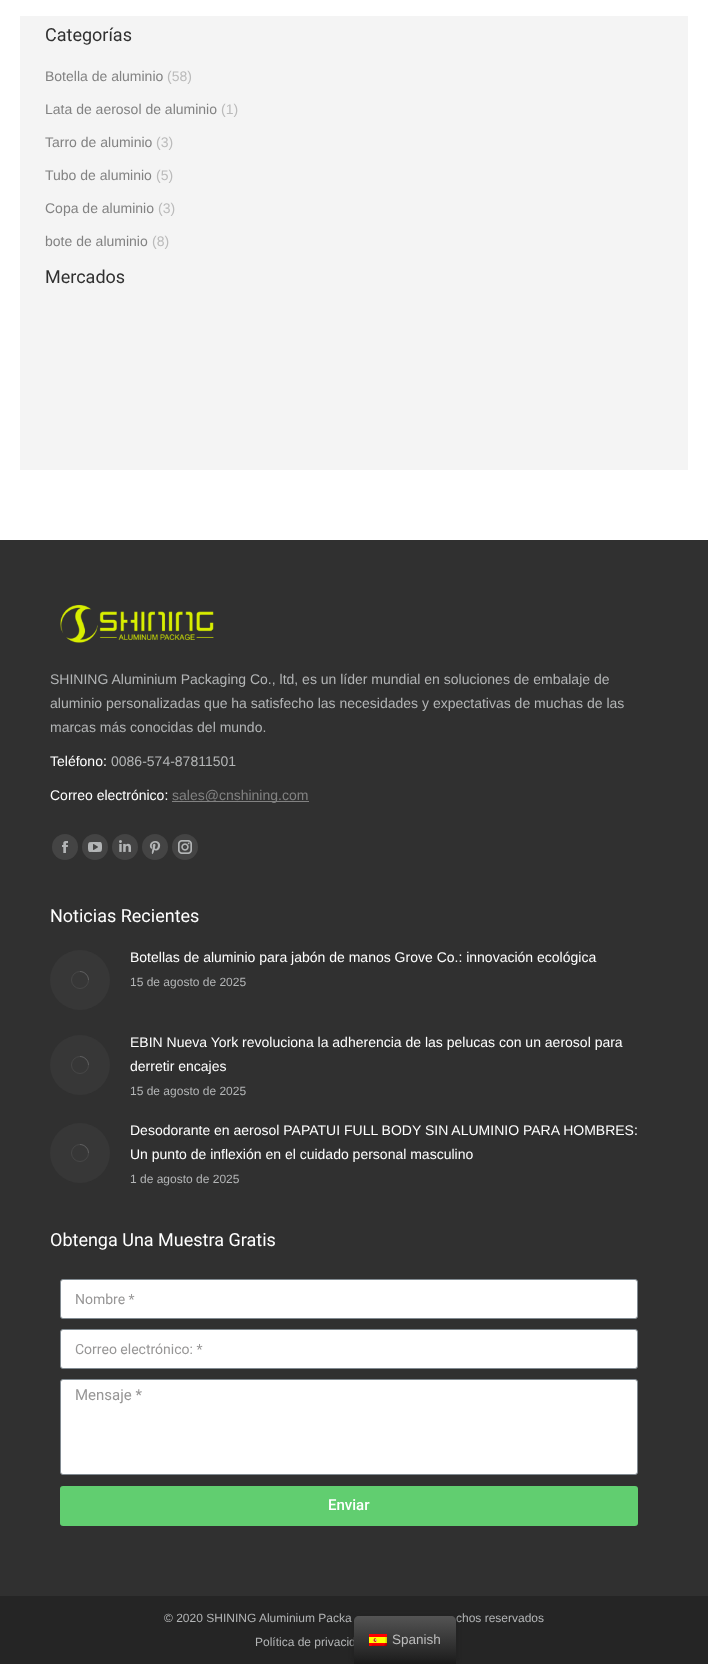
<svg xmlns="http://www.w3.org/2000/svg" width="708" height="1664">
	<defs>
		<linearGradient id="g1" gradientUnits="userSpaceOnUse" x1="405" y1="1664" x2="405" y2="1616"><stop offset="0" stop-color="#1B1B1B" /><stop offset="1" stop-color="#545454" /></linearGradient>
	</defs>
	<rect width="100%" height="100%" fill="#FFFFFF" />
	<rect x="20" y="16" width="668" height="454" fill="#F4F4F4" />
	<text x="45" y="41" font-family="Roboto" font-size="18" fill="#303030">Categorías</text>
	<text x="45" y="81" font-family="Liberation Sans" font-size="14" fill="#828282">Botella de aluminio</text>
	<text x="167" y="81" font-family="Liberation Sans" font-size="14" fill="#BBBBBB">(58)</text>
	<text x="45" y="114" font-family="Liberation Sans" font-size="14" fill="#828282">Lata de aerosol de aluminio</text>
	<text x="221" y="114" font-family="Liberation Sans" font-size="14" fill="#BBBBBB">(1)</text>
	<text x="45" y="147" font-family="Liberation Sans" font-size="14" fill="#828282">Tarro de aluminio</text>
	<text x="156" y="147" font-family="Liberation Sans" font-size="14" fill="#BBBBBB">(3)</text>
	<text x="45" y="180" font-family="Liberation Sans" font-size="14" fill="#828282">Tubo de aluminio</text>
	<text x="156" y="180" font-family="Liberation Sans" font-size="14" fill="#BBBBBB">(5)</text>
	<text x="45" y="213" font-family="Liberation Sans" font-size="14" fill="#828282">Copa de aluminio</text>
	<text x="158" y="213" font-family="Liberation Sans" font-size="14" fill="#BBBBBB">(3)</text>
	<text x="45" y="246" font-family="Liberation Sans" font-size="14" fill="#828282">bote de aluminio</text>
	<text x="152" y="246" font-family="Liberation Sans" font-size="14" fill="#BBBBBB">(8)</text>
	<text x="45" y="283" font-family="Roboto" font-size="18" fill="#303030">Mercados</text>
	<rect x="0" y="540" width="708" height="1056" fill="#303030" />
	<image x="60" y="604" width="154" height="39" href="assets/img1.png" />
	<g font-family="Liberation Sans" font-size="14" fill="#B3B5B6">
		<text x="50" y="684">SHINING Aluminium Packaging Co., ltd, es un líder mundial en soluciones de embalaje de</text>
		<text x="50" y="708">aluminio personalizadas que ha satisfecho las necesidades y expectativas de muchas de las</text>
		<text x="50" y="732">marcas más conocidas del mundo.</text>
	</g>
	<text x="50" y="766" font-family="Liberation Sans" font-size="14" fill="#FFFFFF">Teléfono:</text>
	<text x="111" y="766" font-family="Liberation Sans" font-size="14" fill="#B3B5B6">0086-574-87811501</text>
	<text x="50" y="800" font-family="Liberation Sans" font-size="14" fill="#FFFFFF">Correo electrónico:</text>
	<rect x="172" y="801" width="137" height="1" fill="#828282" />
	<text x="172" y="800" font-family="Liberation Sans" font-size="14" fill="#828282">sales@cnshining.com</text>
	<circle cx="65" cy="847" r="13" fill="#444444" />
	<image x="62" y="841" width="6" height="12" href="assets/img2.png" />
	<circle cx="95" cy="847" r="13" fill="#444444" />
	<image x="88" y="842" width="14" height="10" href="assets/img3.png" />
	<circle cx="125" cy="847" r="13" fill="#444444" />
	<image x="119" y="840" width="12" height="12" href="assets/img4.png" />
	<circle cx="155" cy="847" r="13" fill="#444444" />
	<image x="149" y="841" width="12" height="13" href="assets/img5.png" />
	<circle cx="185" cy="847" r="13" fill="#444444" />
	<image x="178" y="840" width="14" height="14" href="assets/img6.png" />
	<text x="50" y="922" font-family="Roboto" font-size="18" fill="#FFFFFF">Noticias Recientes</text>
	<circle cx="80" cy="980" r="30" fill="#373737" />
	<circle cx="80" cy="980" r="8.5" fill="none" stroke="#484848" stroke-width="0.9" />
	<path d="M88.5 980C88.5 975.5 84.5 971.5 80 971.5" fill="none" stroke="#B3B5B6" stroke-opacity="0.25" stroke-width="0.9" />
	<text x="130" y="962" font-family="Liberation Sans" font-size="14" fill="#FFFFFF">Botellas de aluminio para jabón de manos Grove Co.: innovación ecológica</text>
	<text x="130" y="986" font-family="Liberation Sans" font-size="12" fill="#B3B5B6">15 de agosto de 2025</text>
	<circle cx="80" cy="1065" r="30" fill="#373737" />
	<circle cx="80" cy="1065" r="8.5" fill="none" stroke="#484848" stroke-width="0.9" />
	<path d="M88.5 1065C88.5 1060.5 84.5 1056.5 80 1056.5" fill="none" stroke="#B3B5B6" stroke-opacity="0.25" stroke-width="0.9" />
	<g font-family="Liberation Sans" font-size="14" fill="#FFFFFF">
		<text x="130" y="1047">EBIN Nueva York revoluciona la adherencia de las pelucas con un aerosol para</text>
		<text x="130" y="1071">derretir encajes</text>
	</g>
	<text x="130" y="1095" font-family="Liberation Sans" font-size="12" fill="#B3B5B6">15 de agosto de 2025</text>
	<circle cx="80" cy="1153" r="30" fill="#373737" />
	<circle cx="80" cy="1153" r="8.5" fill="none" stroke="#484848" stroke-width="0.9" />
	<path d="M88.5 1153C88.5 1148.5 84.5 1144.5 80 1144.5" fill="none" stroke="#B3B5B6" stroke-opacity="0.25" stroke-width="0.9" />
	<g font-family="Liberation Sans" font-size="14" fill="#FFFFFF">
		<text x="130" y="1135">Desodorante en aerosol PAPATUI FULL BODY SIN ALUMINIO PARA HOMBRES:</text>
		<text x="130" y="1159">Un punto de inflexión en el cuidado personal masculino</text>
	</g>
	<text x="130" y="1183" font-family="Liberation Sans" font-size="12" fill="#B3B5B6">1 de agosto de 2025</text>
	<text x="50" y="1246" font-family="Roboto" font-size="18" fill="#FFFFFF">Obtenga Una Muestra Gratis</text>
	<rect x="60.5" y="1279.5" width="577" height="39" rx="2.5" fill="#FFFFFF" stroke="#818A91" />
	<text x="75" y="1304" font-family="Roboto" font-size="14" fill="#979696">Nombre *</text>
	<rect x="60.5" y="1329.5" width="577" height="39" rx="2.5" fill="#FFFFFF" stroke="#818A91" />
	<text x="75" y="1354" font-family="Roboto" font-size="14" fill="#979696">Correo electrónico: *</text>
	<rect x="60.5" y="1379.5" width="577" height="95" rx="2.5" fill="#FFFFFF" stroke="#818A91" />
	<text x="75" y="1400" font-family="Roboto" font-size="15" fill="#979696">Mensaje *</text>
	<rect x="60" y="1486" width="578" height="40" rx="3" fill="#61CE70" />
	<text x="328" y="1510" font-family="Roboto" font-size="15" font-weight="500" fill="#FFFFFF">Enviar</text>
	<rect x="0" y="1596" width="708" height="68" fill="#252525" />
	<g font-family="Liberation Sans" font-size="12" fill="#B3B5B6">
		<text x="164" y="1622">© 2020 SHINING Aluminium Packa</text>
		<text x="456" y="1622">chos reservados</text>
		<text x="255" y="1646">Política de privacid</text>
	</g>
	<rect x="354" y="1616" width="102" height="48" rx="5" fill="#212121" filter="blur(2.5px)" />
	<path d="M359 1616H451C454 1616 456 1618 456 1621V1664H354V1621C354 1618 356 1616 359 1616Z" fill="url(#g1)" />
	<image x="369" y="1634" width="18" height="12" href="assets/img7.png" />
	<text x="392" y="1644" font-family="Liberation Sans" font-size="13.5" fill="#BBBBBB">Spanish</text>
</svg>
